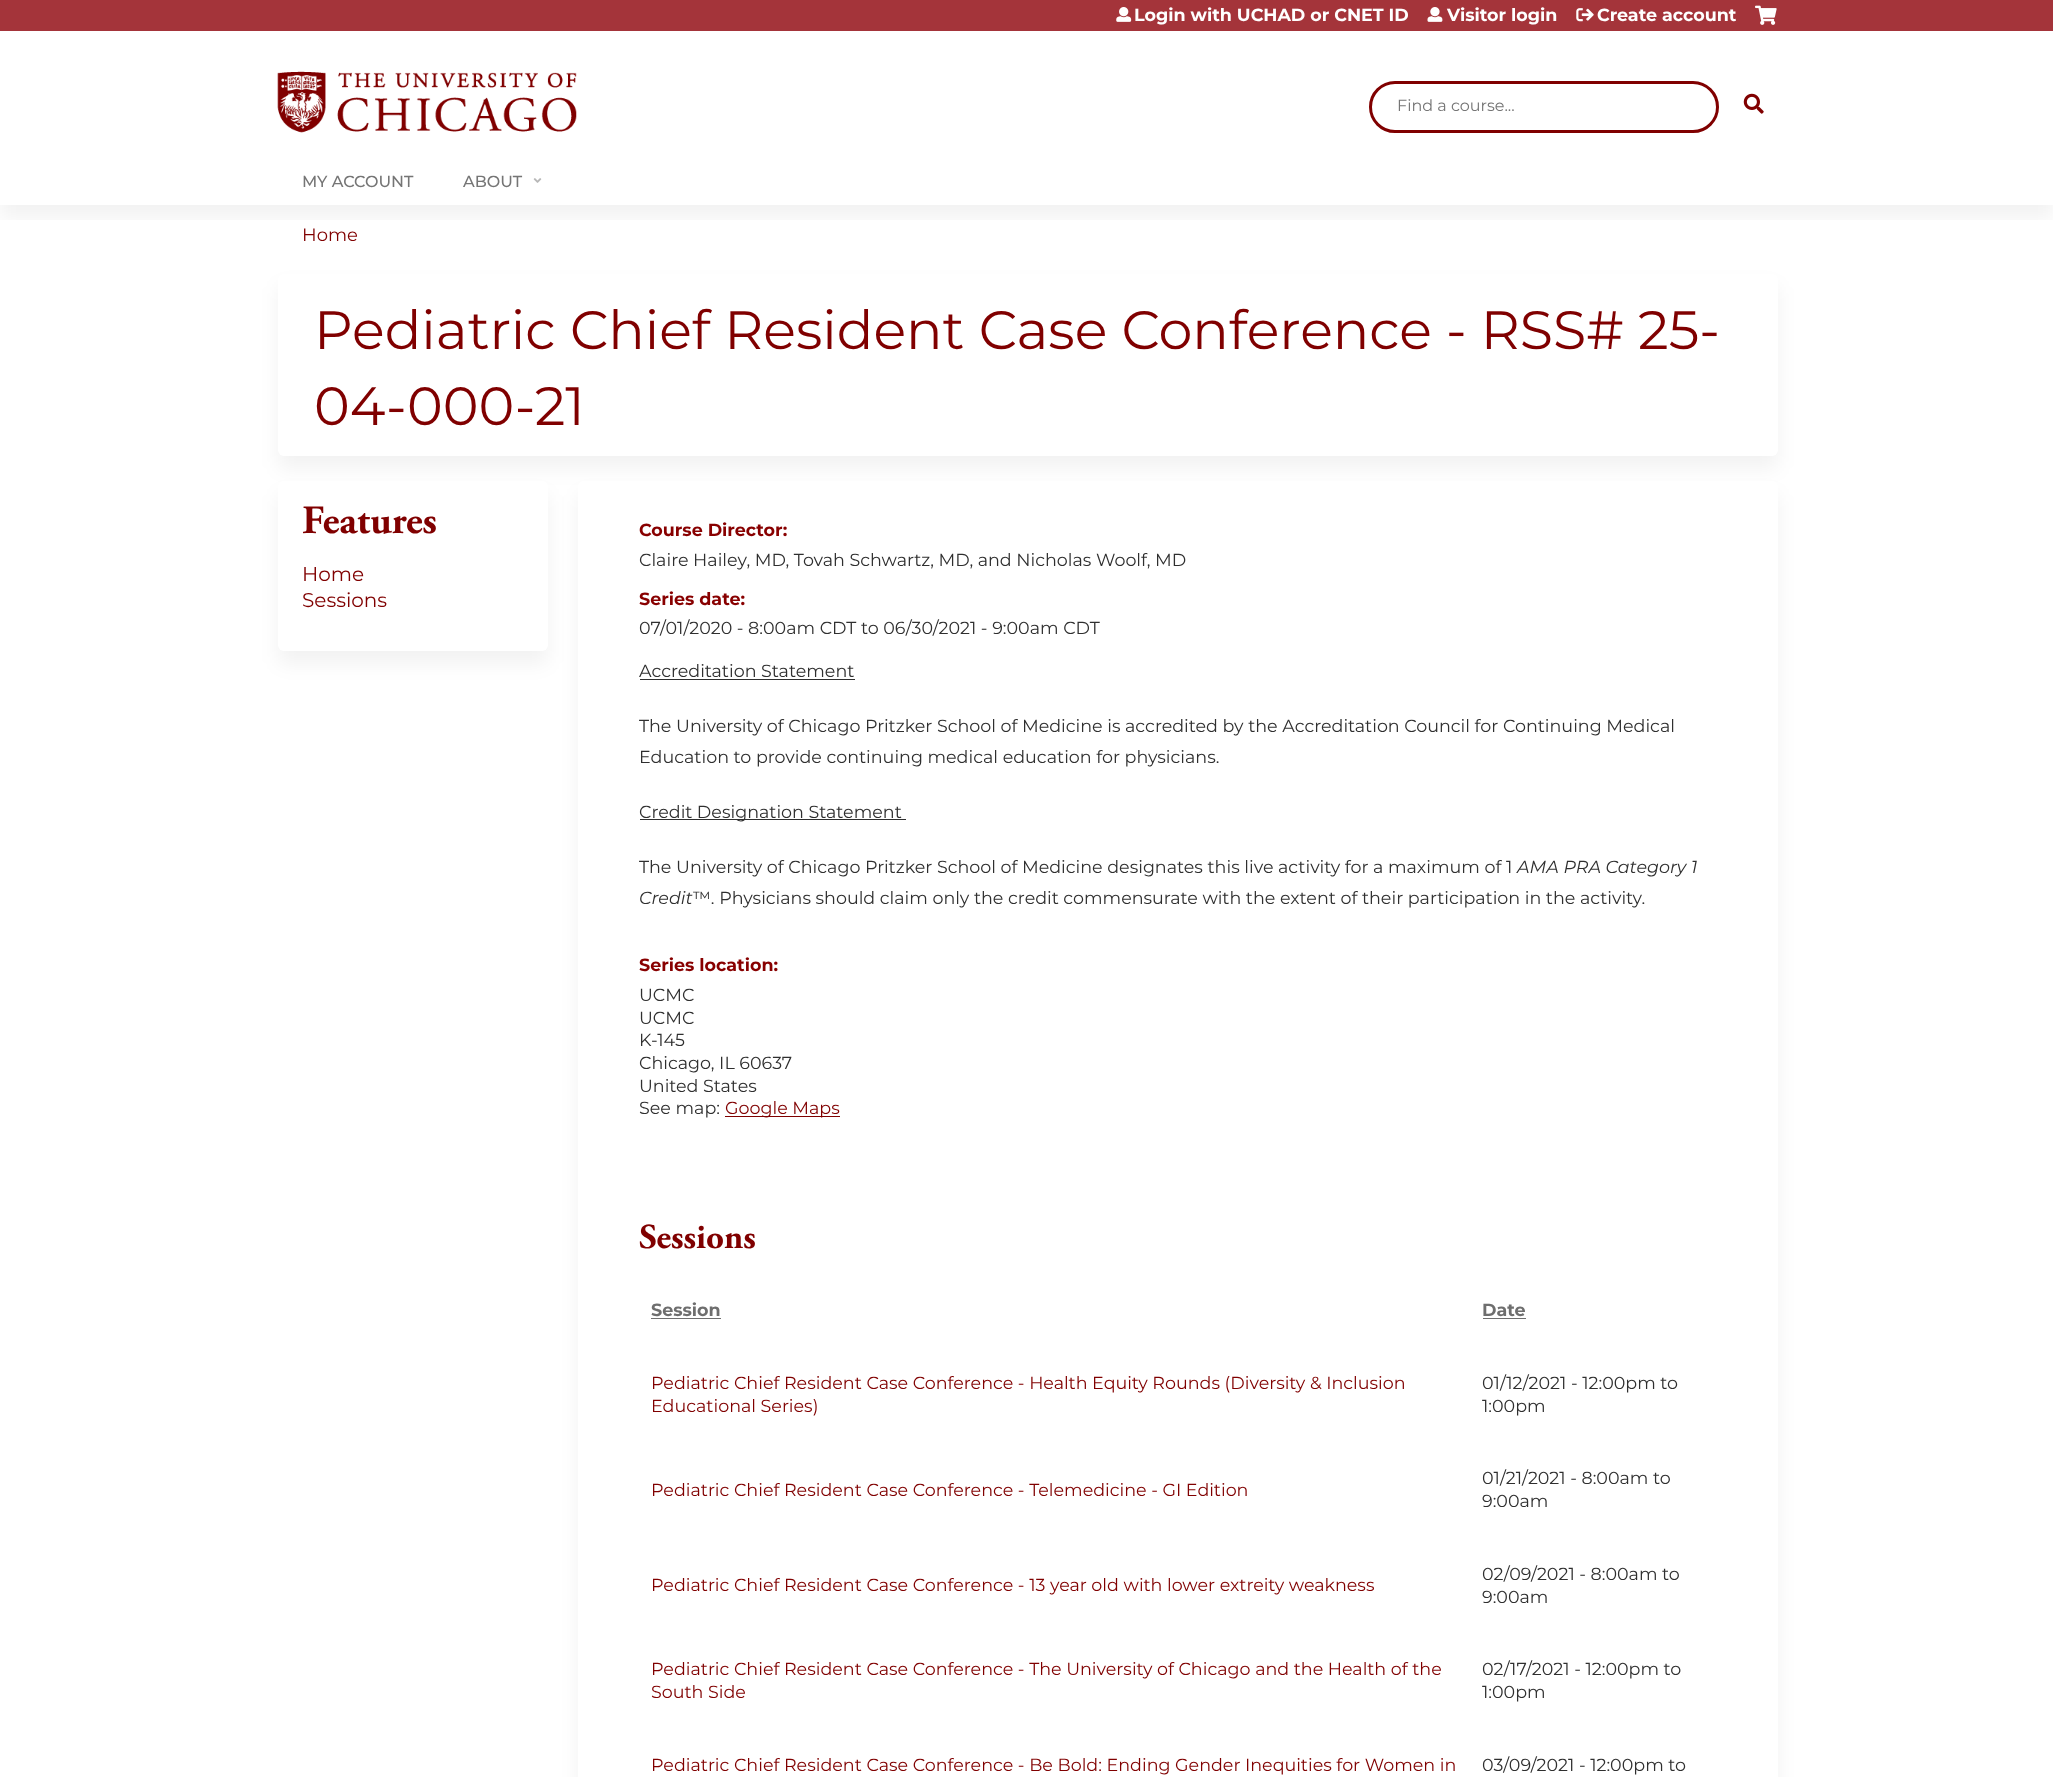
<svg xmlns="http://www.w3.org/2000/svg" width="2053" height="1777">
	<defs>
		<clipPath id="clip1"><rect x="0" y="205" width="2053" height="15" /></clipPath>
	</defs>
	<rect width="100%" height="100%" fill="#FFFFFF" />
	<rect x="0" y="0" width="2053" height="31" fill="#A4343A" />
	<image x="277" y="71" width="300" height="62" href="assets/img1.png" />
	<image x="1116" y="7" width="16" height="15" href="assets/img2.png" />
	<text x="1134" y="21" font-family="Montserrat" font-size="17.5" font-weight="700" fill="#FFFFFF">Login with UCHAD or CNET ID</text>
	<image x="1427" y="7" width="16" height="15" href="assets/img3.png" />
	<text x="1447" y="21" font-family="Montserrat" font-size="17.5" font-weight="700" fill="#FFFFFF">Visitor login</text>
	<image x="1576" y="8" width="18" height="14" href="assets/img4.png" />
	<text x="1597" y="21" font-family="Montserrat" font-size="17.5" font-weight="700" fill="#FFFFFF">Create account</text>
	<image x="1755" y="5" width="22" height="20" href="assets/img5.png" />
	<rect x="1370.5" y="82.5" width="347" height="49" rx="24.5" fill="none" stroke="#800000" stroke-width="3" />
	<text x="1397" y="111" font-family="Montserrat" font-size="16" fill="#757575">Find a course...</text>
	<image x="1743" y="93" width="21" height="21" href="assets/img6.png" />
	<g clip-path="url(#clip1)">
		<rect x="0" y="170" width="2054" height="48" fill="#000000" fill-opacity="0.05" filter="blur(9.5px)" />
	</g>
	<g font-family="Montserrat" font-size="16" font-weight="500" fill="#757575">
		<text x="302" y="187">MY ACCOUNT</text>
		<text x="463" y="187">ABOUT</text>
	</g>
	<image x="533" y="178" width="9" height="5" href="assets/img7.png" />
	<text x="302" y="241" font-family="Montserrat" font-size="18" fill="#800000">Home</text>
	<rect x="278" y="286" width="1500" height="183" rx="6" fill="#000000" fill-opacity="0.05" filter="blur(9.5px)" />
	<rect x="278" y="274" width="1500" height="182" rx="6" fill="#FFFFFF" />
	<g font-family="Montserrat" font-size="54" fill="#800000">
		<text x="314" y="349">Pediatric Chief Resident Case Conference - RSS# 25-</text>
		<text x="314" y="425">04-000-21</text>
	</g>
	<rect x="278" y="494" width="270" height="170" rx="6" fill="#000000" fill-opacity="0.05" filter="blur(9.5px)" />
	<rect x="278" y="481" width="270" height="170" rx="6" fill="#FFFFFF" />
	<text x="302" y="533" font-family="Adobe Garamond" font-size="40" font-weight="700" fill="#800000">Features</text>
	<g font-family="Montserrat" font-size="20" fill="#800000">
		<text x="302" y="581">Home</text>
		<text x="302" y="607">Sessions</text>
	</g>
	<rect x="578" y="494" width="1200" height="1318" rx="6" fill="#000000" fill-opacity="0.05" filter="blur(9.5px)" />
	<rect x="578" y="481" width="1200" height="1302" rx="6" fill="#FFFFFF" />
	<text x="639" y="536" font-family="Montserrat" font-size="17.5" font-weight="700" fill="#880000">Course Director:</text>
	<text x="639" y="566" font-family="Montserrat" font-size="17.5" fill="#2F2F2F">Claire Hailey, MD, Tovah Schwartz, MD, and Nicholas Woolf, MD</text>
	<text x="639" y="605" font-family="Montserrat" font-size="17.5" font-weight="700" fill="#880000">Series date:</text>
	<g font-family="Montserrat" font-size="17.5" fill="#2F2F2F">
		<text x="639" y="634">07/01/2020 - 8:00am CDT to 06/30/2021 - 9:00am CDT</text>
		<text x="639" y="677">Accreditation Statement</text>
	</g>
	<rect x="640" y="679" width="215" height="1" fill="#2F2F2F" />
	<g font-family="Montserrat" font-size="17.5" fill="#2F2F2F">
		<text x="639" y="732">The University of Chicago Pritzker School of Medicine is accredited by the Accreditation Council for Continuing Medical</text>
		<text x="639" y="763">Education to provide continuing medical education for physicians.</text>
	</g>
	<rect x="640" y="819" width="266" height="1" fill="#2F2F2F" />
	<g font-family="Montserrat" font-size="17.5" fill="#2F2F2F">
		<text x="639" y="818">Credit Designation Statement</text>
		<text x="639" y="873">The University of Chicago Pritzker School of Medicine designates this live activity for a maximum of 1</text>
	</g>
	<g font-family="Montserrat" font-size="17.5" font-style="italic" fill="#2F2F2F">
		<text x="1517" y="873">AMA PRA Category 1</text>
		<text x="639" y="904">Credit</text>
	</g>
	<text x="693" y="904" font-family="Montserrat" font-size="17.5" fill="#2F2F2F">™. Physicians should claim only the credit commensurate with the extent of their participation in the activity.</text>
	<text x="639" y="971" font-family="Montserrat" font-size="17.5" font-weight="700" fill="#880000">Series location:</text>
	<g font-family="Montserrat" font-size="17.5" fill="#2F2F2F">
		<text x="639" y="1001">UCMC</text>
		<text x="639" y="1024">UCMC</text>
		<text x="639" y="1046">K-145</text>
		<text x="639" y="1069">Chicago, IL 60637</text>
		<text x="639" y="1092">United States</text>
		<text x="639" y="1114">See map:</text>
	</g>
	<rect x="725" y="1116" width="115" height="1" fill="#800000" />
	<text x="725" y="1114" font-family="Montserrat" font-size="17.5" fill="#800000">Google Maps</text>
	<text x="639" y="1248" font-family="Adobe Garamond" font-size="35" font-weight="700" fill="#800000">Sessions</text>
	<text x="651" y="1316" font-family="Montserrat" font-size="17.5" font-weight="700" fill="#6E6E6E">Session</text>
	<rect x="651" y="1318" width="70" height="1" fill="#6E6E6E" />
	<text x="1482" y="1316" font-family="Montserrat" font-size="17.5" font-weight="700" fill="#6E6E6E">Date</text>
	<rect x="1483" y="1318" width="43" height="1" fill="#6E6E6E" />
	<g font-family="Montserrat" font-size="17.5" fill="#800000">
		<text x="651" y="1389">Pediatric Chief Resident Case Conference - Health Equity Rounds (Diversity &amp; Inclusion</text>
		<text x="651" y="1412">Educational Series)</text>
	</g>
	<g font-family="Montserrat" font-size="17.5" fill="#2F2F2F">
		<text x="1482" y="1389">01/12/2021 - 12:00pm to</text>
		<text x="1482" y="1412">1:00pm</text>
	</g>
	<text x="651" y="1496" font-family="Montserrat" font-size="17.5" fill="#800000">Pediatric Chief Resident Case Conference - Telemedicine - GI Edition</text>
	<g font-family="Montserrat" font-size="17.5" fill="#2F2F2F">
		<text x="1482" y="1484">01/21/2021 - 8:00am to</text>
		<text x="1482" y="1507">9:00am</text>
	</g>
	<text x="651" y="1591" font-family="Montserrat" font-size="17.5" fill="#800000">Pediatric Chief Resident Case Conference - 13 year old with lower extreity weakness</text>
	<g font-family="Montserrat" font-size="17.5" fill="#2F2F2F">
		<text x="1482" y="1580">02/09/2021 - 8:00am to</text>
		<text x="1482" y="1603">9:00am</text>
	</g>
	<g font-family="Montserrat" font-size="17.5" fill="#800000">
		<text x="651" y="1675">Pediatric Chief Resident Case Conference - The University of Chicago and the Health of the</text>
		<text x="651" y="1698">South Side</text>
	</g>
	<g font-family="Montserrat" font-size="17.5" fill="#2F2F2F">
		<text x="1482" y="1675">02/17/2021 - 12:00pm to</text>
		<text x="1482" y="1698">1:00pm</text>
	</g>
	<text x="651" y="1771" font-family="Montserrat" font-size="17.5" fill="#800000">Pediatric Chief Resident Case Conference - Be Bold: Ending Gender Inequities for Women in</text>
	<text x="1482" y="1771" font-family="Montserrat" font-size="17.5" fill="#2F2F2F">03/09/2021 - 12:00pm to</text>
</svg>
